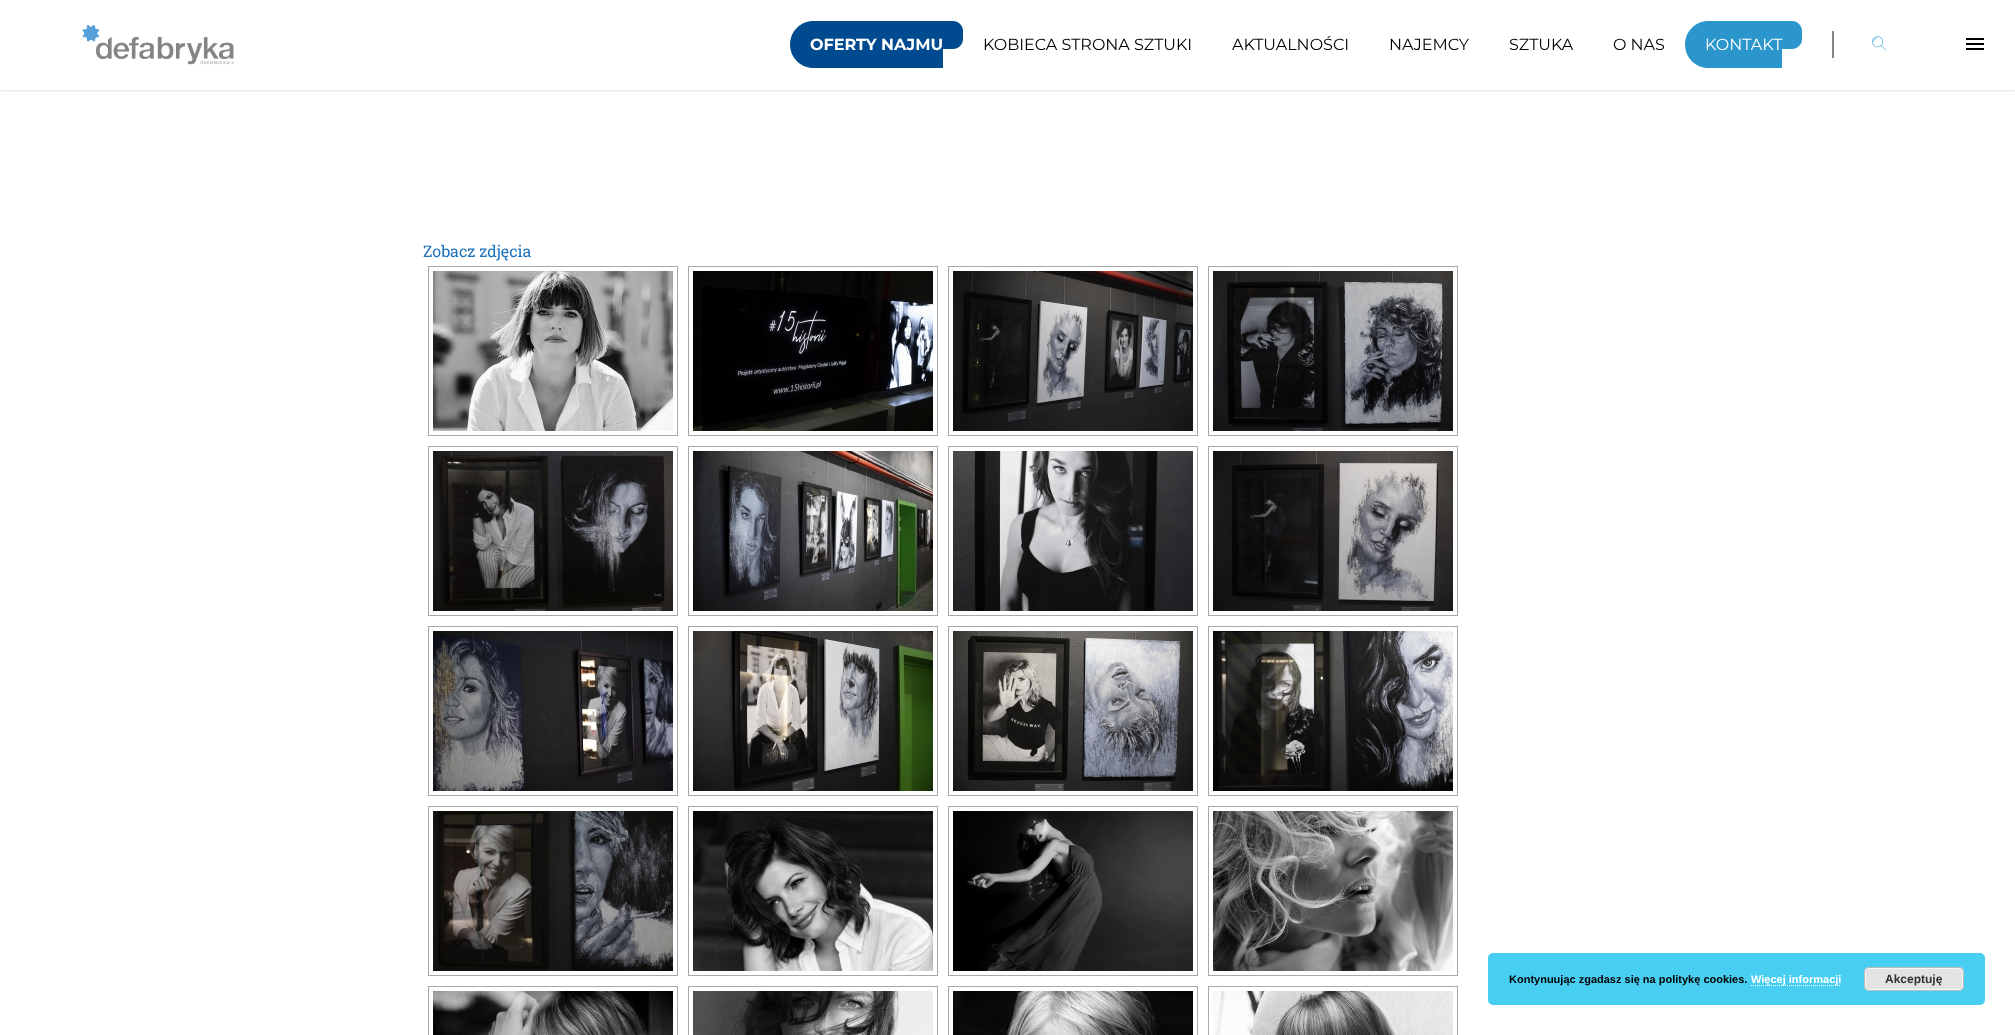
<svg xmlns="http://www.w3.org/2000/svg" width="2015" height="1035">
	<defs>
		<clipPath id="clip1"><rect x="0" y="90" width="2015" height="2" /></clipPath>
	</defs>
	<rect width="100%" height="100%" fill="#FFFFFF" />
	<g clip-path="url(#clip1)">
		<rect x="0" y="0" width="2015" height="90" fill="#000000" fill-opacity="0.24" filter="blur(1.5px)" />
	</g>
	<image x="82" y="25" width="152" height="40" href="assets/img1.png" />
	<path d="M813.5 21H943V68H813.5C800.5 68 790 57.5 790 44.5C790 31.5 800.5 21 813.5 21Z" fill="#004A8F" />
	<text x="810" y="50" font-family="Montserrat" font-size="16" font-weight="700" fill="#FFFFFF">OFERTY NAJMU</text>
	<path d="M943 21H953C958.5 21 963 25.5 963 31V39C963 44.5 958.5 49 953 49H943Z" fill="#004A8F" />
	<g font-family="Montserrat" font-size="16" fill="#000000">
		<text x="983" y="50">KOBIECA STRONA SZTUKI</text>
		<text x="1232" y="50">AKTUALNOŚCI</text>
		<text x="1389" y="50">NAJEMCY</text>
		<text x="1509" y="50">SZTUKA</text>
		<text x="1613" y="50">O NAS</text>
	</g>
	<path d="M1708.5 21H1782V68H1708.5C1695.5 68 1685 57.5 1685 44.5C1685 31.5 1695.5 21 1708.5 21Z" fill="#2B96CC" />
	<path d="M1782 21H1792C1797.5 21 1802 25.5 1802 31V39C1802 44.5 1797.5 49 1792 49H1782Z" fill="#2B96CC" />
	<text x="1705" y="50" font-family="Montserrat" font-size="16" fill="#FFFFFF">KONTAKT</text>
	<rect x="1832" y="31" width="2" height="27" fill="#868686" />
	<image x="1872" y="36" width="15" height="15" href="assets/img2.png" />
	<rect x="1966" y="43" width="18" height="2" fill="#000000" />
	<rect x="1966" y="38" width="18" height="2" fill="#000000" />
	<rect x="1966" y="48" width="18" height="2" fill="#000000" />
	<text x="423" y="257" font-family="Roboto Slab" font-size="16" fill="#1E73BE">Zobacz zdjęcia</text>
	<rect x="428.5" y="266.5" width="249" height="169" fill="none" stroke="#A9A9A9" />
	<image x="433" y="271" width="240" height="160" href="assets/img3.png" />
	<rect x="688.5" y="266.5" width="249" height="169" fill="none" stroke="#A9A9A9" />
	<image x="693" y="271" width="240" height="160" href="assets/img4.png" />
	<rect x="948.5" y="266.5" width="249" height="169" fill="none" stroke="#A9A9A9" />
	<image x="953" y="271" width="240" height="160" href="assets/img5.png" />
	<rect x="1208.5" y="266.5" width="249" height="169" fill="none" stroke="#A9A9A9" />
	<image x="1213" y="271" width="240" height="160" href="assets/img6.png" />
	<rect x="428.5" y="446.5" width="249" height="169" fill="none" stroke="#A9A9A9" />
	<image x="433" y="451" width="240" height="160" href="assets/img7.png" />
	<rect x="688.5" y="446.5" width="249" height="169" fill="none" stroke="#A9A9A9" />
	<image x="693" y="451" width="240" height="160" href="assets/img8.png" />
	<rect x="948.5" y="446.5" width="249" height="169" fill="none" stroke="#A9A9A9" />
	<image x="953" y="451" width="240" height="160" href="assets/img9.png" />
	<rect x="1208.5" y="446.5" width="249" height="169" fill="none" stroke="#A9A9A9" />
	<image x="1213" y="451" width="240" height="160" href="assets/img10.png" />
	<rect x="428.5" y="626.5" width="249" height="169" fill="none" stroke="#A9A9A9" />
	<image x="433" y="631" width="240" height="160" href="assets/img11.png" />
	<rect x="688.5" y="626.5" width="249" height="169" fill="none" stroke="#A9A9A9" />
	<image x="693" y="631" width="240" height="160" href="assets/img12.png" />
	<rect x="948.5" y="626.5" width="249" height="169" fill="none" stroke="#A9A9A9" />
	<image x="953" y="631" width="240" height="160" href="assets/img13.png" />
	<rect x="1208.5" y="626.5" width="249" height="169" fill="none" stroke="#A9A9A9" />
	<image x="1213" y="631" width="240" height="160" href="assets/img14.png" />
	<rect x="428.5" y="806.5" width="249" height="169" fill="none" stroke="#A9A9A9" />
	<image x="433" y="811" width="240" height="160" href="assets/img15.png" />
	<rect x="688.5" y="806.5" width="249" height="169" fill="none" stroke="#A9A9A9" />
	<image x="693" y="811" width="240" height="160" href="assets/img16.png" />
	<rect x="948.5" y="806.5" width="249" height="169" fill="none" stroke="#A9A9A9" />
	<image x="953" y="811" width="240" height="160" href="assets/img17.png" />
	<rect x="1208.5" y="806.5" width="249" height="169" fill="none" stroke="#A9A9A9" />
	<image x="1213" y="811" width="240" height="160" href="assets/img18.png" />
	<rect x="428.5" y="986.5" width="249" height="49" fill="none" stroke="#A9A9A9" />
	<image x="433" y="991" width="240" height="44" href="assets/img19.png" />
	<rect x="688.5" y="986.5" width="249" height="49" fill="none" stroke="#A9A9A9" />
	<image x="693" y="991" width="240" height="44" href="assets/img20.png" />
	<rect x="948.5" y="986.5" width="249" height="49" fill="none" stroke="#A9A9A9" />
	<image x="953" y="991" width="240" height="44" href="assets/img21.png" />
	<rect x="1208.5" y="986.5" width="249" height="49" fill="none" stroke="#A9A9A9" />
	<image x="1213" y="991" width="240" height="44" href="assets/img22.png" />
	<rect x="1488" y="953" width="497" height="52" rx="5" fill="#48CEF0" />
	<text x="1509" y="983" font-family="Liberation Sans" font-size="11" font-weight="700" fill="#000000">Kontynuując zgadasz się na politykę cookies.</text>
	<path d="M1751 985.5H1841" fill="none" stroke="#FFFFFF" stroke-dasharray="1 1" />
	<text x="1751" y="983" font-family="Liberation Sans" font-size="11" font-weight="700" fill="#FFFFFF">Więcej informacji</text>
	<rect x="1864" y="967" width="100" height="24" rx="5" fill="#E3E3E3" />
	<rect x="1865.5" y="968.5" width="97" height="21" rx="3.5" fill="none" stroke="#F6F6F6" />
	<rect x="1864.5" y="967.5" width="99" height="23" rx="4.5" fill="none" stroke="#BBBBBB" />
	<text x="1885" y="983" font-family="Liberation Sans" font-size="12" font-weight="700" fill="#333333">Akceptuję</text>
</svg>
